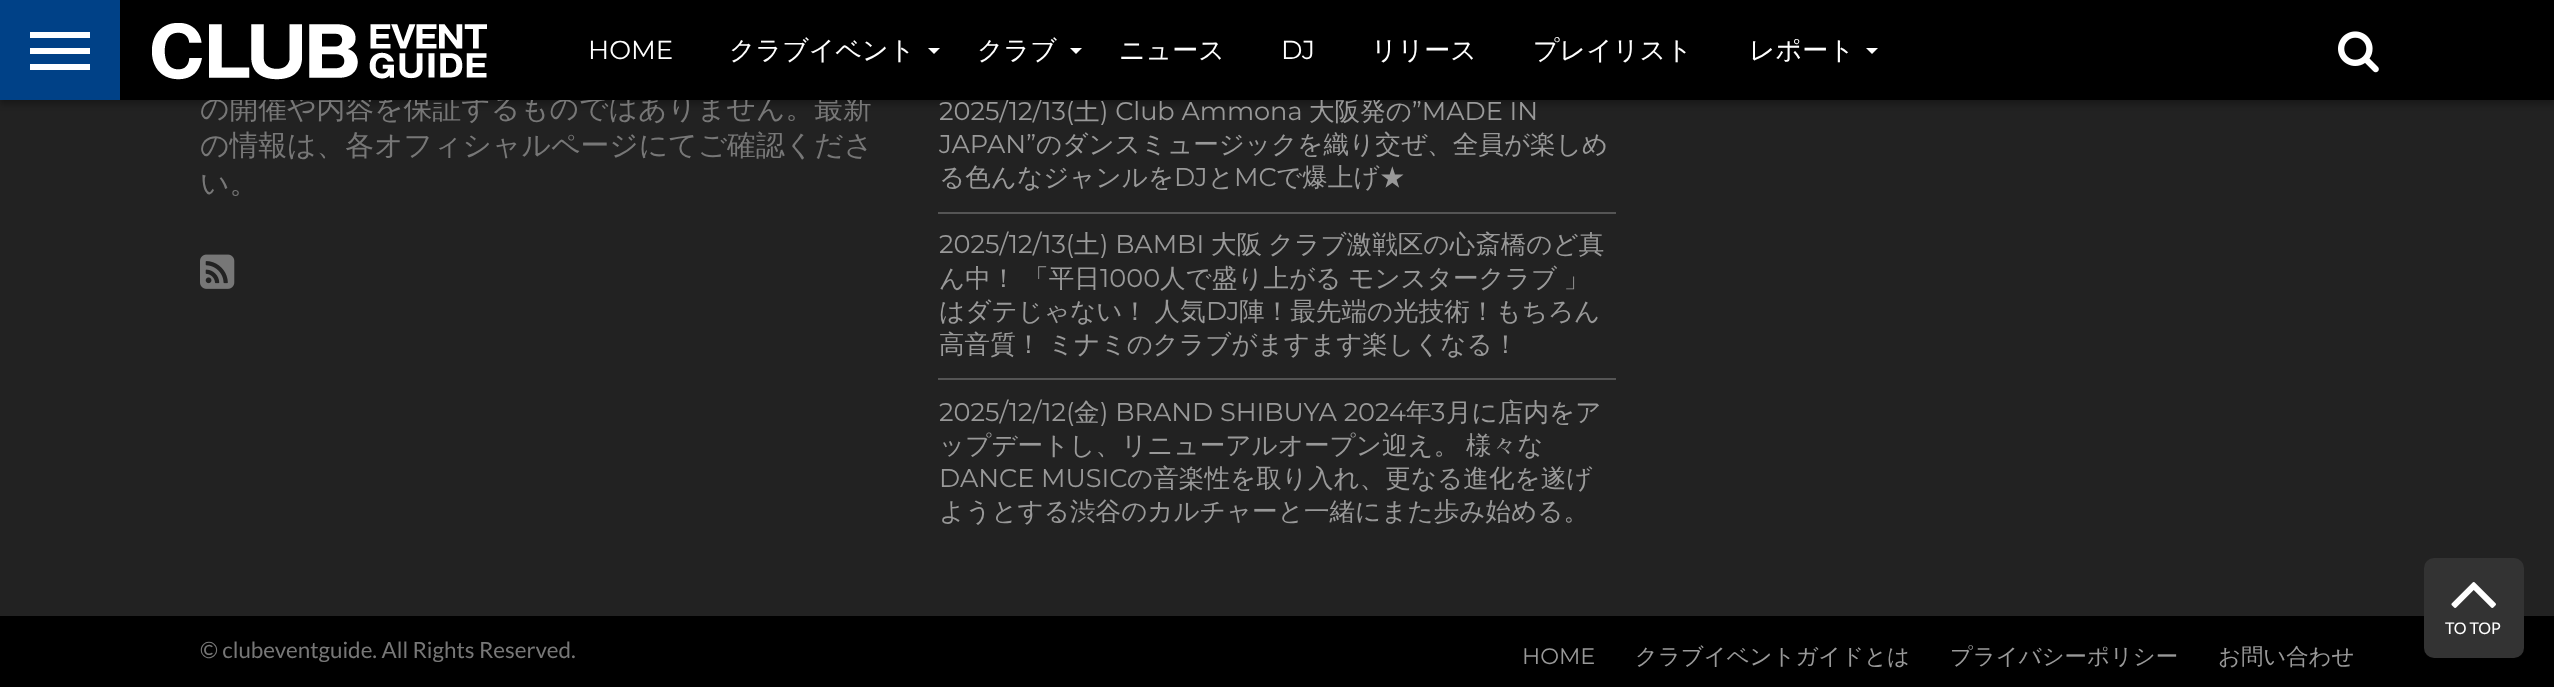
<svg xmlns="http://www.w3.org/2000/svg" width="2554" height="687">
	<rect width="100%" height="100%" fill="#222222" />
	<rect x="0" y="4" width="2554" height="100" fill="#000000" fill-opacity="0.3" filter="blur(3px)" />
	<text x="200" y="118" font-family="WenQuanYi Zen Hei" font-size="28.8" font-weight="500" fill="#777777">の開催や内容を保証するものではありません。最新</text>
	<text x="939" y="120" font-family="Montserrat" font-size="25.6" fill="#999999">2025/12/13(</text>
	<g font-family="WenQuanYi Zen Hei" font-size="25.6" font-weight="500" fill="#999999">
		<text x="1074" y="120">土</text>
		<text x="1309" y="120">大阪発の</text>
	</g>
	<rect x="120" y="0" width="2434" height="100" fill="#000000" />
	<rect x="0" y="0" width="120" height="100" fill="#004187" />
	<rect x="30" y="32" width="60" height="6" fill="#FFFFFF" />
	<rect x="30" y="48" width="60" height="6" fill="#FFFFFF" />
	<rect x="30" y="64" width="60" height="6" fill="#FFFFFF" />
	<image x="152" y="23" width="335" height="57" href="assets/img1.png" />
	<text x="588" y="59" font-family="Montserrat" font-size="26" fill="#FFFFFF">HOME</text>
	<text x="729" y="59" font-family="WenQuanYi Zen Hei" font-size="26" font-weight="500" fill="#FFFFFF">クラブイベント</text>
	<path d="M928 48H940L934 54Z" fill="#FFFFFF" />
	<text x="977" y="59" font-family="WenQuanYi Zen Hei" font-size="26" font-weight="500" fill="#FFFFFF">クラブ</text>
	<path d="M1070 48H1082L1076 54Z" fill="#FFFFFF" />
	<text x="1119" y="59" font-family="WenQuanYi Zen Hei" font-size="26" font-weight="500" fill="#FFFFFF">ニュース</text>
	<text x="1281" y="59" font-family="Montserrat" font-size="26" fill="#FFFFFF">DJ</text>
	<g font-family="WenQuanYi Zen Hei" font-size="26" font-weight="500" fill="#FFFFFF">
		<text x="1371" y="59">リリース</text>
		<text x="1533" y="59">プレイリスト</text>
		<text x="1749" y="59">レポート</text>
	</g>
	<path d="M1866 48H1878L1872 54Z" fill="#FFFFFF" />
	<image x="2338" y="31" width="41" height="42" href="assets/img2.png" />
	<g font-family="WenQuanYi Zen Hei" font-size="28.8" font-weight="500" fill="#777777">
		<text x="200" y="155">の情報は、各オフィシャルページにてご確認くださ</text>
		<text x="200" y="193">い。</text>
	</g>
	<image x="200" y="254" width="35" height="35" href="assets/img3.png" />
	<g font-family="Montserrat" font-size="25.6" fill="#999999">
		<text x="1100" y="120">) Club Ammona</text>
		<text x="1412" y="120">”MADE IN</text>
		<text x="939" y="153">JAPAN”</text>
	</g>
	<g font-family="WenQuanYi Zen Hei" font-size="25.6" font-weight="500" fill="#999999">
		<text x="1036" y="153">のダンスミュージックを織り交ぜ、全員が楽しめ</text>
		<text x="939" y="186">る色んなジャンルを</text>
	</g>
	<text x="1174" y="186" font-family="Montserrat" font-size="25.6" fill="#999999">DJ</text>
	<text x="1208" y="186" font-family="WenQuanYi Zen Hei" font-size="25.6" font-weight="500" fill="#999999">と</text>
	<text x="1234" y="186" font-family="Montserrat" font-size="25.6" fill="#999999">MC</text>
	<text x="1276" y="186" font-family="WenQuanYi Zen Hei" font-size="25.6" font-weight="500" fill="#999999">で爆上げ★</text>
	<rect x="938" y="212" width="678" height="2" fill="#555555" />
	<text x="939" y="253" font-family="Montserrat" font-size="25.6" fill="#999999">2025/12/13(</text>
	<text x="1074" y="253" font-family="WenQuanYi Zen Hei" font-size="25.6" font-weight="500" fill="#999999">土</text>
	<text x="1100" y="253" font-family="Montserrat" font-size="25.6" fill="#999999">) BAMBI</text>
	<g font-family="WenQuanYi Zen Hei" font-size="25.6" font-weight="500" fill="#999999">
		<text x="1211" y="253">大阪</text>
		<text x="1268" y="253">クラブ激戦区の心斎橋のど真</text>
		<text x="939" y="287" word-spacing="-1">ん中！ 「平日</text>
	</g>
	<text x="1100" y="287" font-family="Montserrat" font-size="25.6" fill="#999999">1000</text>
	<g font-family="WenQuanYi Zen Hei" font-size="25.6" font-weight="500" fill="#999999">
		<text x="1160" y="287" word-spacing="-1">人で盛り上がる モンスタークラブ 」</text>
		<text x="939" y="320" word-spacing="-1">はダテじゃない！ 人気</text>
	</g>
	<text x="1206" y="320" font-family="Montserrat" font-size="25.6" fill="#999999">DJ</text>
	<g font-family="WenQuanYi Zen Hei" font-size="25.6" font-weight="500" fill="#999999">
		<text x="1239" y="320">陣！最先端の光技術！もちろん</text>
		<text x="939" y="353" word-spacing="-1">高音質！ ミナミのクラブがますます楽しくなる！</text>
	</g>
	<rect x="938" y="378" width="678" height="2" fill="#555555" />
	<text x="939" y="421" font-family="Montserrat" font-size="25.6" fill="#999999">2025/12/12(</text>
	<text x="1074" y="421" font-family="WenQuanYi Zen Hei" font-size="25.6" font-weight="500" fill="#999999">金</text>
	<text x="1100" y="421" font-family="Montserrat" font-size="25.6" fill="#999999">) BRAND SHIBUYA 2024</text>
	<text x="1406" y="421" font-family="WenQuanYi Zen Hei" font-size="25.6" font-weight="500" fill="#999999">年</text>
	<text x="1431" y="421" font-family="Montserrat" font-size="25.6" fill="#999999">3</text>
	<g font-family="WenQuanYi Zen Hei" font-size="25.6" font-weight="500" fill="#999999">
		<text x="1446" y="421">月に店内をア</text>
		<text x="939" y="454" word-spacing="-1">ップデートし、リニューアルオープン迎え。 様々な</text>
	</g>
	<text x="939" y="487" font-family="Montserrat" font-size="25.6" fill="#999999">DANCE MUSIC</text>
	<g font-family="WenQuanYi Zen Hei" font-size="25.6" font-weight="500" fill="#999999">
		<text x="1127" y="487">の音楽性を取り入れ、更なる進化を遂げ</text>
		<text x="939" y="520">ようとする渋谷のカルチャーと一緒にまた歩み始める。</text>
	</g>
	<rect x="0" y="616" width="2554" height="71" fill="#000000" />
	<text x="200" y="658" font-family="Lato" font-size="22.4" fill="#777777">© clubeventguide. All Rights Reserved.</text>
	<text x="1522" y="664" font-family="Montserrat" font-size="22.4" fill="#999999">HOME</text>
	<g font-family="WenQuanYi Zen Hei" font-size="22.4" font-weight="500" fill="#999999">
		<text x="1635" y="664">クラブイベントガイドとは</text>
		<text x="1950" y="664">プライバシーポリシー</text>
		<text x="2218" y="664">お問い合わせ</text>
	</g>
	<rect x="2424" y="558" width="100" height="100" rx="10" fill="#333333" />
	<image x="2451" y="582" width="45" height="26" href="assets/img4.png" />
	<text x="2445" y="634" font-family="Lato" font-size="16" fill="#FFFFFF">TO TOP</text>
</svg>
